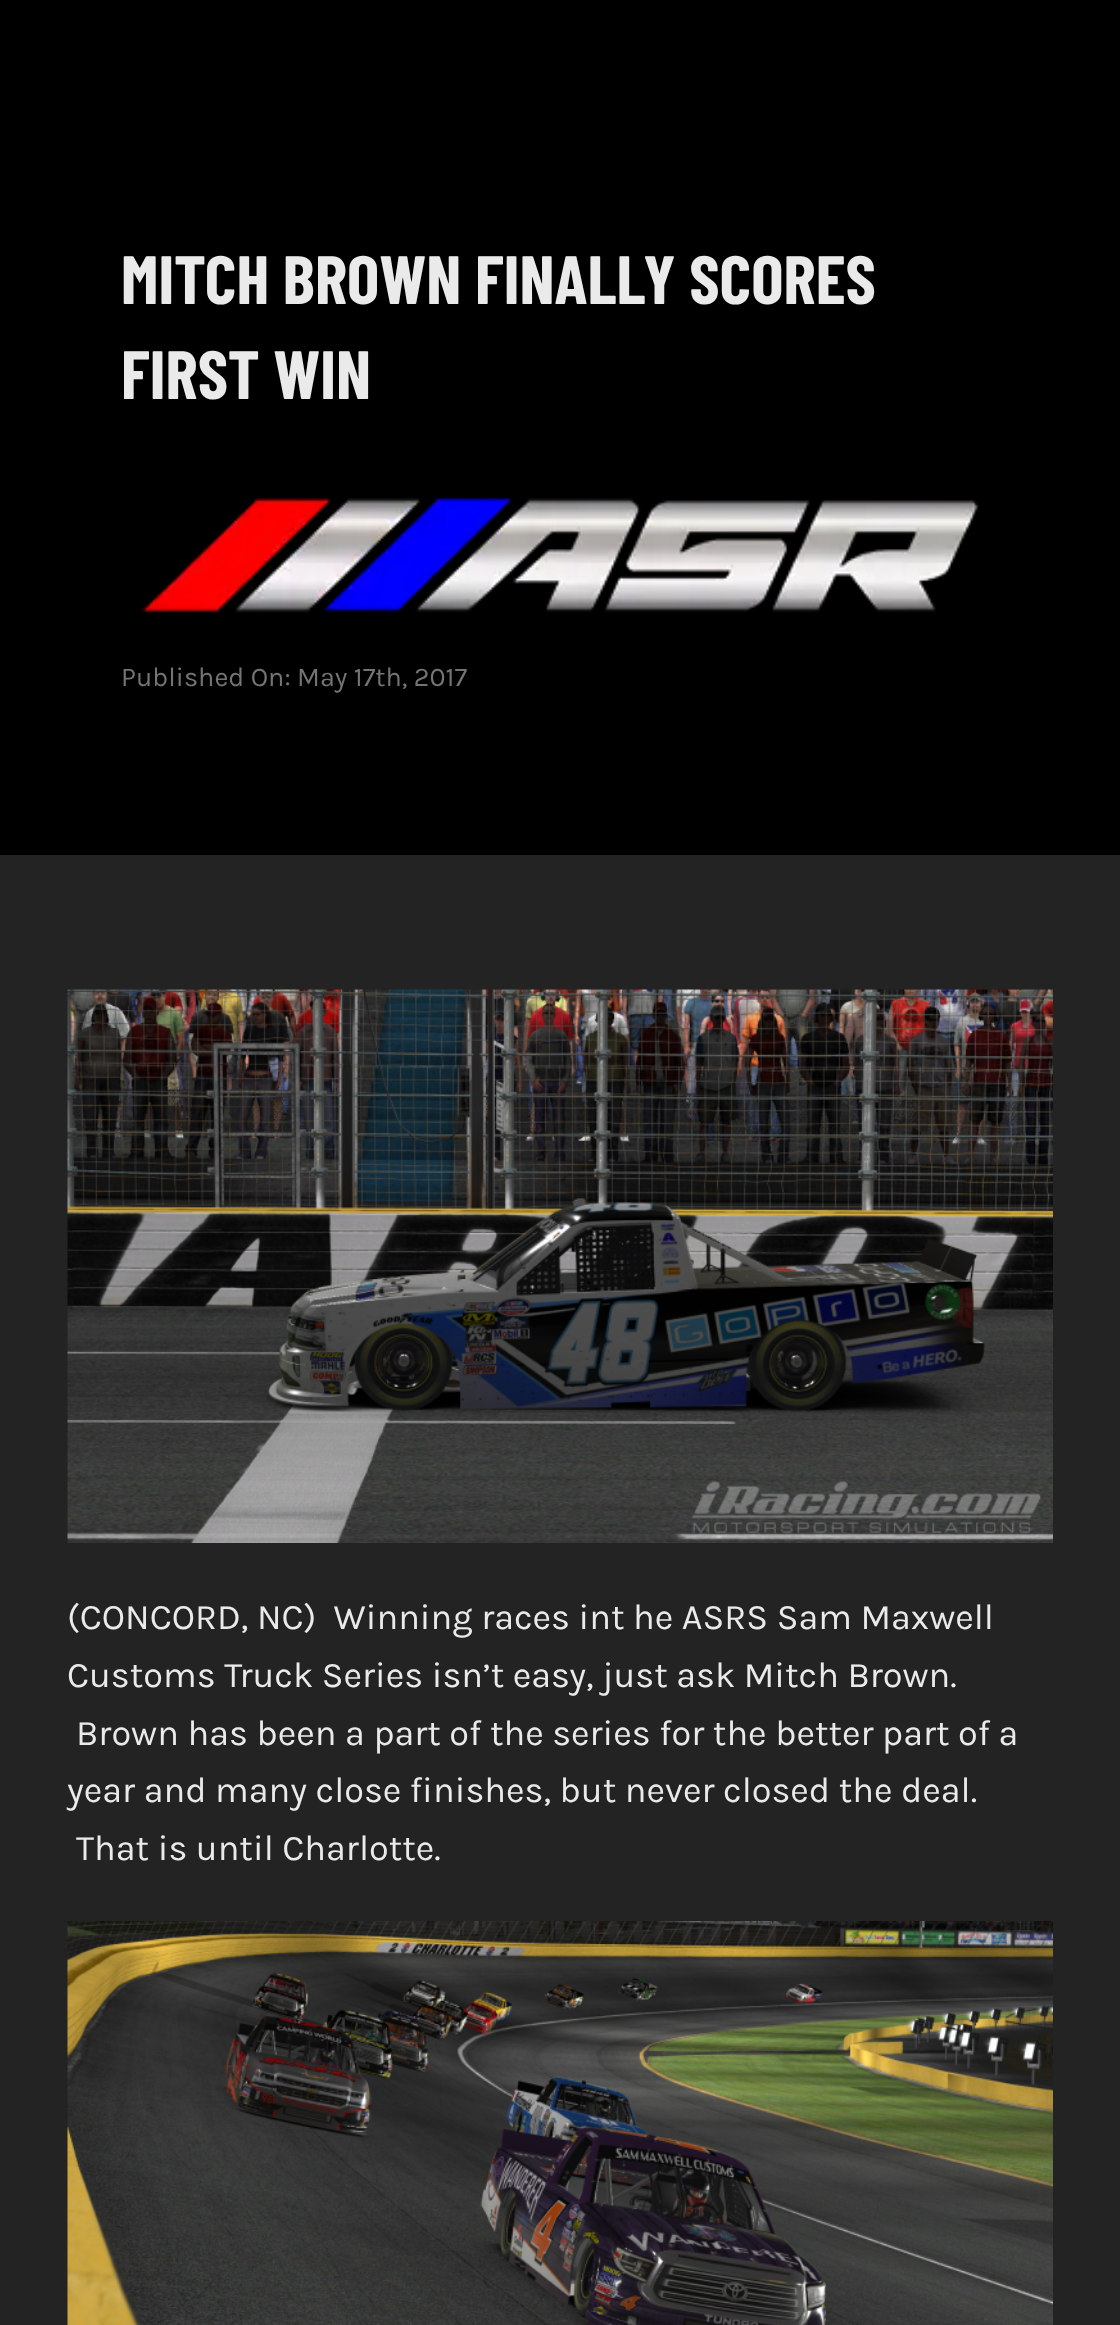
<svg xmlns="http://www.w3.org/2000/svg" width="1120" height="2325">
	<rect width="100%" height="100%" fill="#000000" />
	<g font-family="Barlow Condensed" font-size="68.25" font-weight="700" fill="#EBEAEA">
		<text x="121" y="304">MITCH BROWN FINALLY SCORES</text>
		<text x="121" y="399">FIRST WIN</text>
	</g>
	<image x="141" y="498" width="839" height="115" href="assets/img1.png" />
	<text x="121" y="686" font-family="Karla" font-size="27" fill="#747474">Published On: May 17th, 2017</text>
	<rect x="0" y="855" width="1120" height="1470" fill="#232323" />
	<image x="67" y="989" width="986" height="554" href="assets/img2.png" />
	<g font-family="Karla" font-size="36" fill="#EBEAEA">
		<text x="67" y="1629" xml:space="preserve">(CONCORD, NC)  Winning races int he ASRS Sam Maxwell</text>
		<text x="67" y="1687">Customs Truck Series isn’t easy, just ask Mitch Brown.</text>
		<text x="76" y="1745">Brown has been a part of the series for the better part of a</text>
		<text x="67" y="1802">year and many close finishes, but never closed the deal.</text>
		<text x="76" y="1860">That is until Charlotte.</text>
	</g>
	<image x="67" y="1921" width="986" height="404" href="assets/img3.png" />
</svg>
